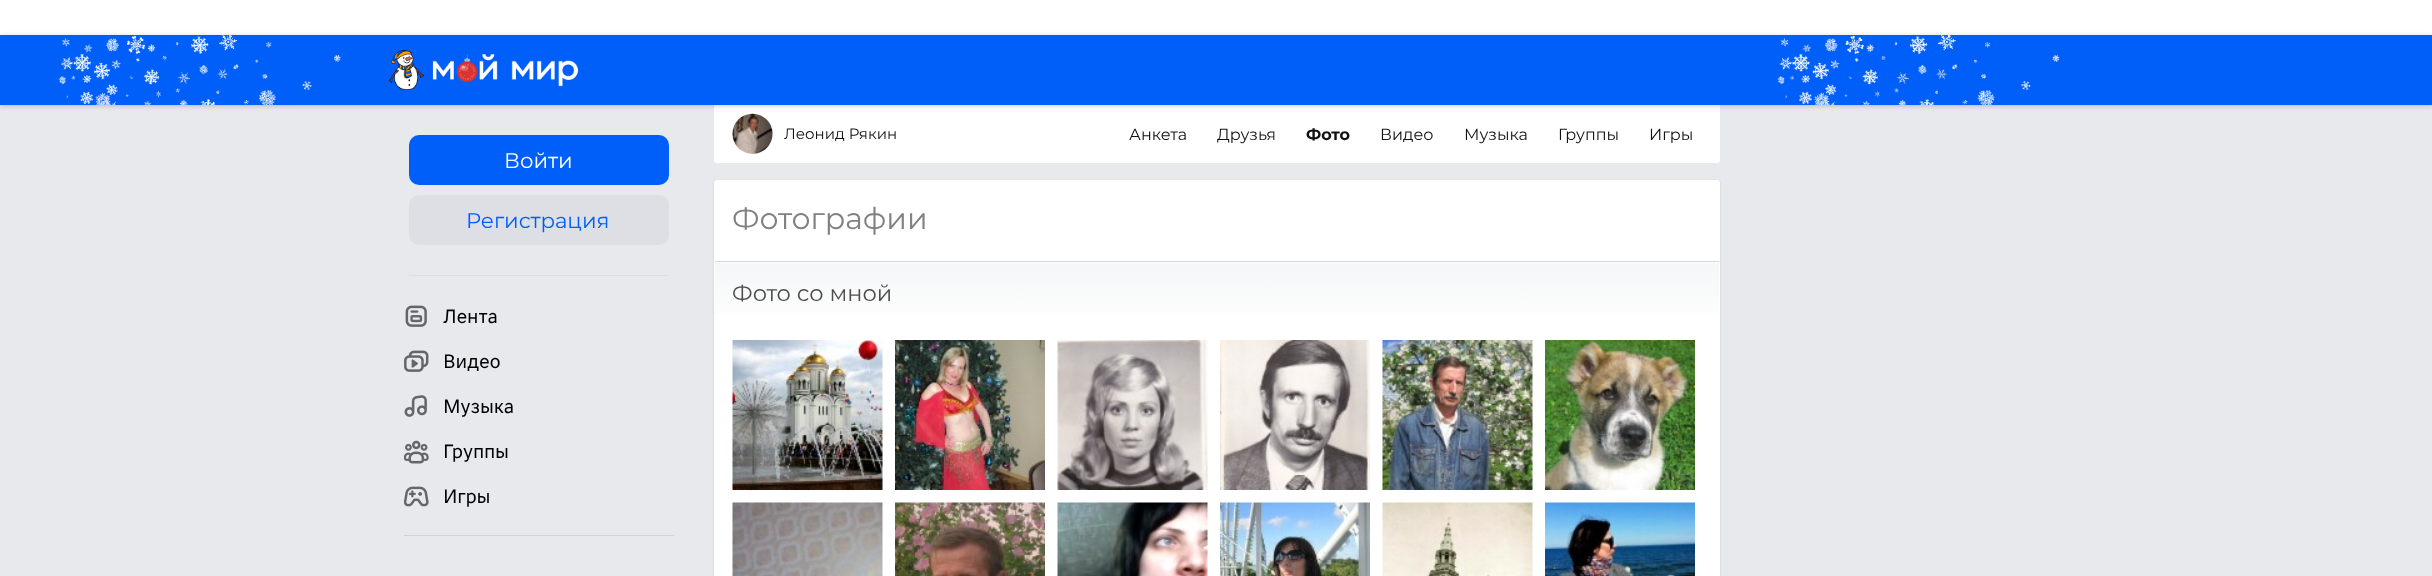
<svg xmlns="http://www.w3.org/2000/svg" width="2432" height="576">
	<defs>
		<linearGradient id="g1" gradientUnits="userSpaceOnUse" x1="1217" y1="262" x2="1217" y2="331"><stop offset="0" stop-color="#F5F6F8" /><stop offset="1" stop-color="#FFFFFF" /></linearGradient>
	</defs>
	<rect width="100%" height="100%" fill="#E8E9ED" />
	<rect x="0" y="0" width="2432" height="35" fill="#FFFFFF" />
	<path d="M714 105H1720V160.5C1720 162 1719 163 1717.5 163H716.5C715 163 714 162 714 160.5Z" fill="#FFFFFF" />
	<circle cx="753" cy="134" r="20" fill="#F0F0F0" />
	<image x="732" y="113" width="41" height="41" href="assets/img9.png" />
	<rect x="0" y="36" width="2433" height="70" fill="#000000" fill-opacity="0.2" filter="blur(2.5px)" />
	<rect x="0" y="35" width="2432" height="70" fill="#015FF9" />
	<image x="58" y="35" width="283" height="70" href="assets/img1.png" />
	<image x="388" y="50" width="191" height="40" href="assets/img2.png" />
	<image x="1777" y="35" width="283" height="70" href="assets/img3.png" />
	<rect x="409" y="135" width="260" height="50" rx="10" fill="#015FF9" />
	<text x="504" y="168" font-family="Montserrat" font-size="21.25" fill="#FFFFFF">Войти</text>
	<rect x="409" y="195" width="260" height="50" rx="10" fill="#DDDFE4" />
	<text x="466" y="228" font-family="Montserrat" font-size="21.25" fill="#015FF9">Регистрация</text>
	<rect x="409" y="275" width="260" height="1" fill="#DDDEE3" />
	<image x="405" y="305" width="22" height="22" href="assets/img4.png" />
	<text x="443" y="323" font-family="'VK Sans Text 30'" font-size="19" letter-spacing="-0.25" fill="#000000">Лента</text>
	<image x="404" y="350" width="25" height="22" href="assets/img5.png" />
	<text x="443" y="368" font-family="'VK Sans Text 30'" font-size="19" letter-spacing="-0.25" fill="#000000">Видео</text>
	<image x="404" y="395" width="23" height="22" href="assets/img6.png" />
	<text x="443" y="413" font-family="'VK Sans Text 30'" font-size="19" letter-spacing="-0.25" fill="#000000">Музыка</text>
	<image x="404" y="440" width="25" height="24" href="assets/img7.png" />
	<text x="443" y="458" font-family="'VK Sans Text 30'" font-size="19" letter-spacing="-0.25" fill="#000000">Группы</text>
	<image x="404" y="486" width="25" height="21" href="assets/img8.png" />
	<text x="443" y="503" font-family="'VK Sans Text 30'" font-size="19" letter-spacing="-0.25" fill="#000000">Игры</text>
	<rect x="404" y="535" width="270" height="1" fill="#D2D3DA" />
	<rect x="714" y="181" width="1006" height="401" rx="2.5" fill="#000000" fill-opacity="0.12" filter="blur(1px)" />
	<rect x="714" y="180" width="1006" height="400" rx="2.5" fill="#000000" fill-opacity="0.15" filter="blur(0.5px)" />
	<rect x="714" y="180" width="1006" height="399" rx="2.5" fill="#FFFFFF" />
	<text x="784" y="139" font-family="Montserrat" font-size="15" fill="#111111">Леонид Рякин</text>
	<g font-family="Montserrat" font-size="16" fill="#111111">
		<text x="1129" y="140">Анкета</text>
		<text x="1217" y="140">Друзья</text>
	</g>
	<text x="1306" y="140" font-family="Montserrat" font-size="16" font-weight="700" fill="#111111">Фото</text>
	<g font-family="Montserrat" font-size="16" fill="#111111">
		<text x="1380" y="140">Видео</text>
		<text x="1464" y="140">Музыка</text>
		<text x="1558" y="140">Группы</text>
		<text x="1649" y="140">Игры</text>
	</g>
	<text x="732" y="229" font-family="Montserrat" font-size="30" fill="#818181">Фотографии</text>
	<rect x="715" y="263" width="1004" height="51" fill="url(#g1)" />
	<rect x="715" y="261" width="1004" height="1" fill="#D2D5D9" />
	<text x="732" y="301" font-family="Montserrat" font-size="22.5" fill="#4D4D4D">Фото со мной</text>
	<image x="732" y="340" width="151" height="150" href="assets/img10.png" />
	<image x="895" y="340" width="150" height="150" href="assets/img11.png" />
	<image x="1057" y="340" width="151" height="150" href="assets/img12.png" />
	<image x="1220" y="340" width="150" height="150" href="assets/img13.png" />
	<image x="1382" y="340" width="151" height="150" href="assets/img14.png" />
	<image x="1545" y="340" width="150" height="150" href="assets/img15.png" />
	<image x="732" y="502" width="151" height="74" href="assets/img16.png" />
	<image x="895" y="502" width="150" height="74" href="assets/img17.png" />
	<image x="1057" y="502" width="151" height="74" href="assets/img18.png" />
	<image x="1220" y="502" width="150" height="74" href="assets/img19.png" />
	<image x="1382" y="502" width="151" height="74" href="assets/img20.png" />
	<image x="1545" y="502" width="150" height="74" href="assets/img21.png" />
</svg>
